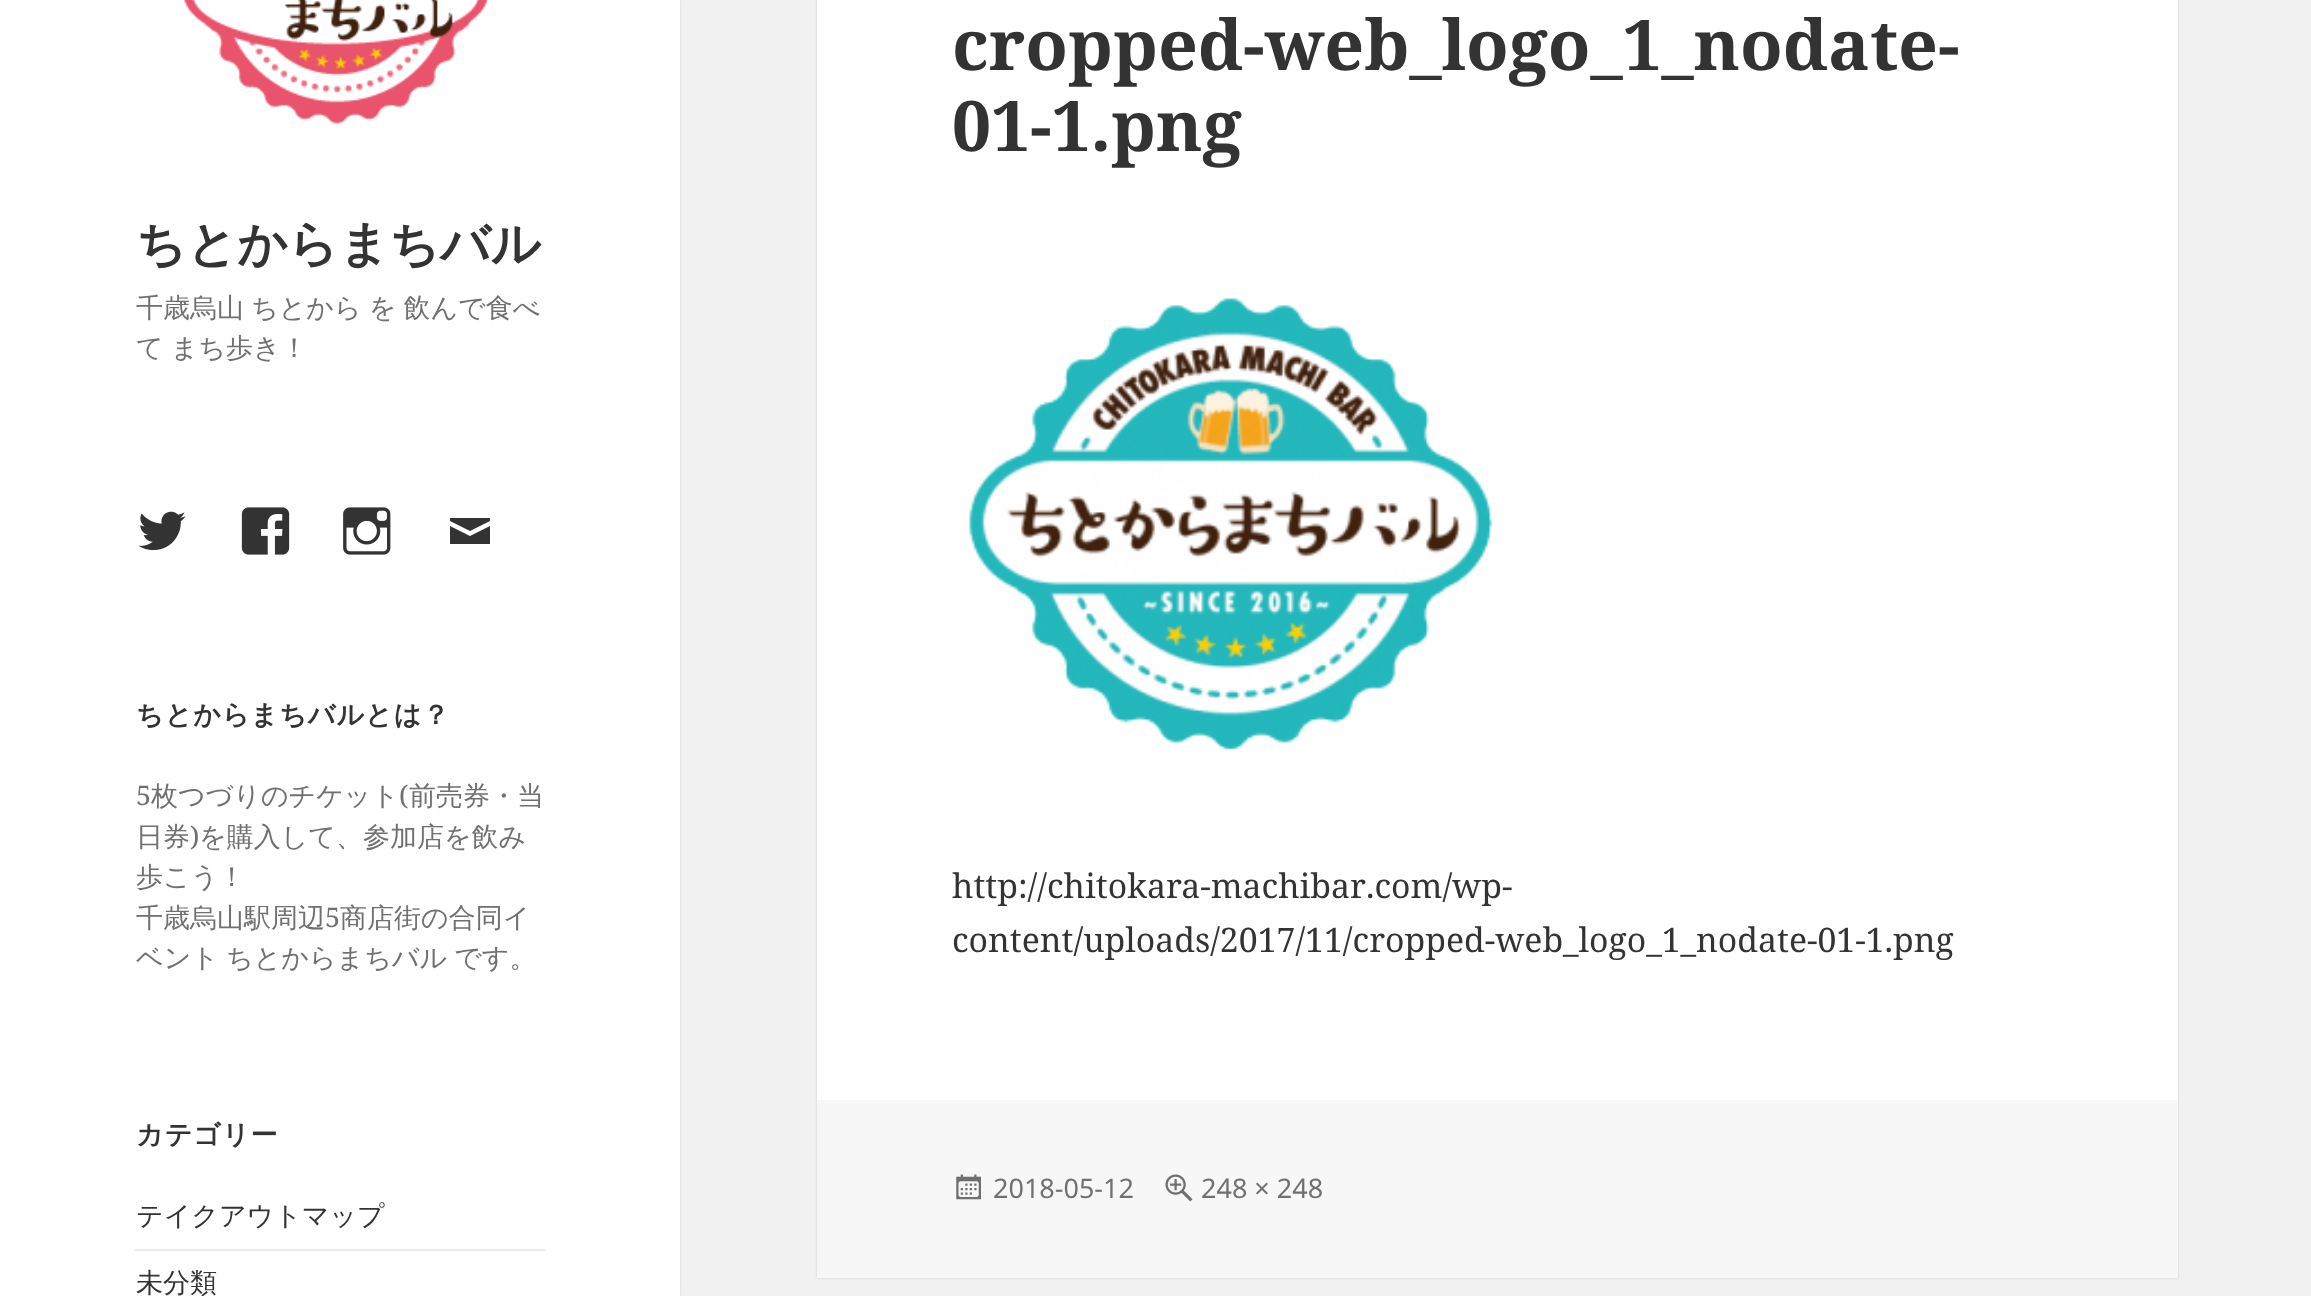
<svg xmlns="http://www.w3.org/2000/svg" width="2311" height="1296">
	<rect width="100%" height="100%" fill="#F1F1F1" />
	<rect x="0" y="0" width="680" height="1296" fill="#000000" fill-opacity="0.15" filter="blur(1px)" />
	<rect x="0" y="0" width="680" height="1296" fill="#FFFFFF" />
	<image x="184" y="0" width="305" height="124" href="assets/img1.png" />
	<text x="136" y="261" font-family="WenQuanYi Zen Hei" font-size="49.5" font-weight="700" fill="#333333">ちとからまちバル</text>
	<g font-family="WenQuanYi Zen Hei" font-size="27" font-weight="500" fill="#707070">
		<text x="136" y="317" word-spacing="-1">千歳烏山 ちとから を 飲んで食べ</text>
		<text x="136" y="357" word-spacing="-1">て まち歩き！</text>
	</g>
	<image x="138" y="511" width="48" height="40" href="assets/img2.png" />
	<image x="241" y="507" width="49" height="48" href="assets/img3.png" />
	<image x="343" y="507" width="48" height="48" href="assets/img4.png" />
	<path d="M450 518H490V521L470 531L450 521ZM450 526L470 536L490 526V544H450Z" fill="#333333" />
	<text x="136" y="724" font-family="WenQuanYi Zen Hei" font-size="27" font-weight="700" letter-spacing="1" fill="#333333">ちとからまちバルとは？</text>
	<text x="136" y="805" font-family="Noto Serif" font-size="27" fill="#707070">5</text>
	<text x="151" y="805" font-family="WenQuanYi Zen Hei" font-size="27" font-weight="500" fill="#707070">枚つづりのチケット</text>
	<text x="399" y="805" font-family="Noto Serif" font-size="27" fill="#707070">(</text>
	<g font-family="WenQuanYi Zen Hei" font-size="27" font-weight="500" fill="#707070">
		<text x="409" y="805">前売券・当</text>
		<text x="136" y="846">日券</text>
	</g>
	<text x="190" y="846" font-family="Noto Serif" font-size="27" fill="#707070">)</text>
	<g font-family="WenQuanYi Zen Hei" font-size="27" font-weight="500" fill="#707070">
		<text x="199" y="846">を購入して、参加店を飲み</text>
		<text x="136" y="886">歩こう！</text>
		<text x="136" y="927">千歳烏山駅周辺</text>
	</g>
	<text x="325" y="927" font-family="Noto Serif" font-size="27" fill="#707070">5</text>
	<g font-family="WenQuanYi Zen Hei" font-size="27" font-weight="500" fill="#707070">
		<text x="340" y="927">商店街の合同イ</text>
		<text x="136" y="967" word-spacing="-1">ベント ちとからまちバル です。</text>
	</g>
	<text x="136" y="1144" font-family="WenQuanYi Zen Hei" font-size="27" font-weight="700" letter-spacing="1" fill="#333333">カテゴリー</text>
	<text x="136" y="1225" font-family="WenQuanYi Zen Hei" font-size="27" font-weight="500" fill="#333333">テイクアウトマップ</text>
	<rect x="135" y="1249" width="410" height="2" fill="#EBEBEB" />
	<text x="136" y="1292" font-family="WenQuanYi Zen Hei" font-size="27" font-weight="500" fill="#333333">未分類</text>
	<rect x="817" y="-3" width="1361" height="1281" fill="#000000" fill-opacity="0.15" filter="blur(1px)" />
	<rect x="817" y="0" width="1361" height="1100" fill="#FFFFFF" />
	<g font-family="Noto Serif" font-size="69.75" font-weight="700" fill="#333333">
		<text x="952" y="70">cropped-web_logo_1_nodate-</text>
		<text x="952" y="151">01-1.png</text>
	</g>
	<image x="969" y="296" width="524" height="455" href="assets/img5.png" />
	<g font-family="Noto Serif" font-size="33.75" fill="#333333">
		<text x="952" y="898">http://chitokara-machibar.com/wp-</text>
		<text x="952" y="952">content/uploads/2017/11/cropped-web_logo_1_nodate-01-1.png</text>
	</g>
	<rect x="817" y="1100" width="1361" height="178" fill="#F7F7F7" />
	<image x="956" y="1174" width="25" height="26" href="assets/img6.png" />
	<text x="993" y="1198" font-family="Noto Sans" font-size="27" fill="#707070">2018-05-12</text>
	<image x="1165" y="1174" width="28" height="28" href="assets/img7.png" />
	<text x="1201" y="1198" font-family="Noto Sans" font-size="27" fill="#707070">248 × 248</text>
</svg>
